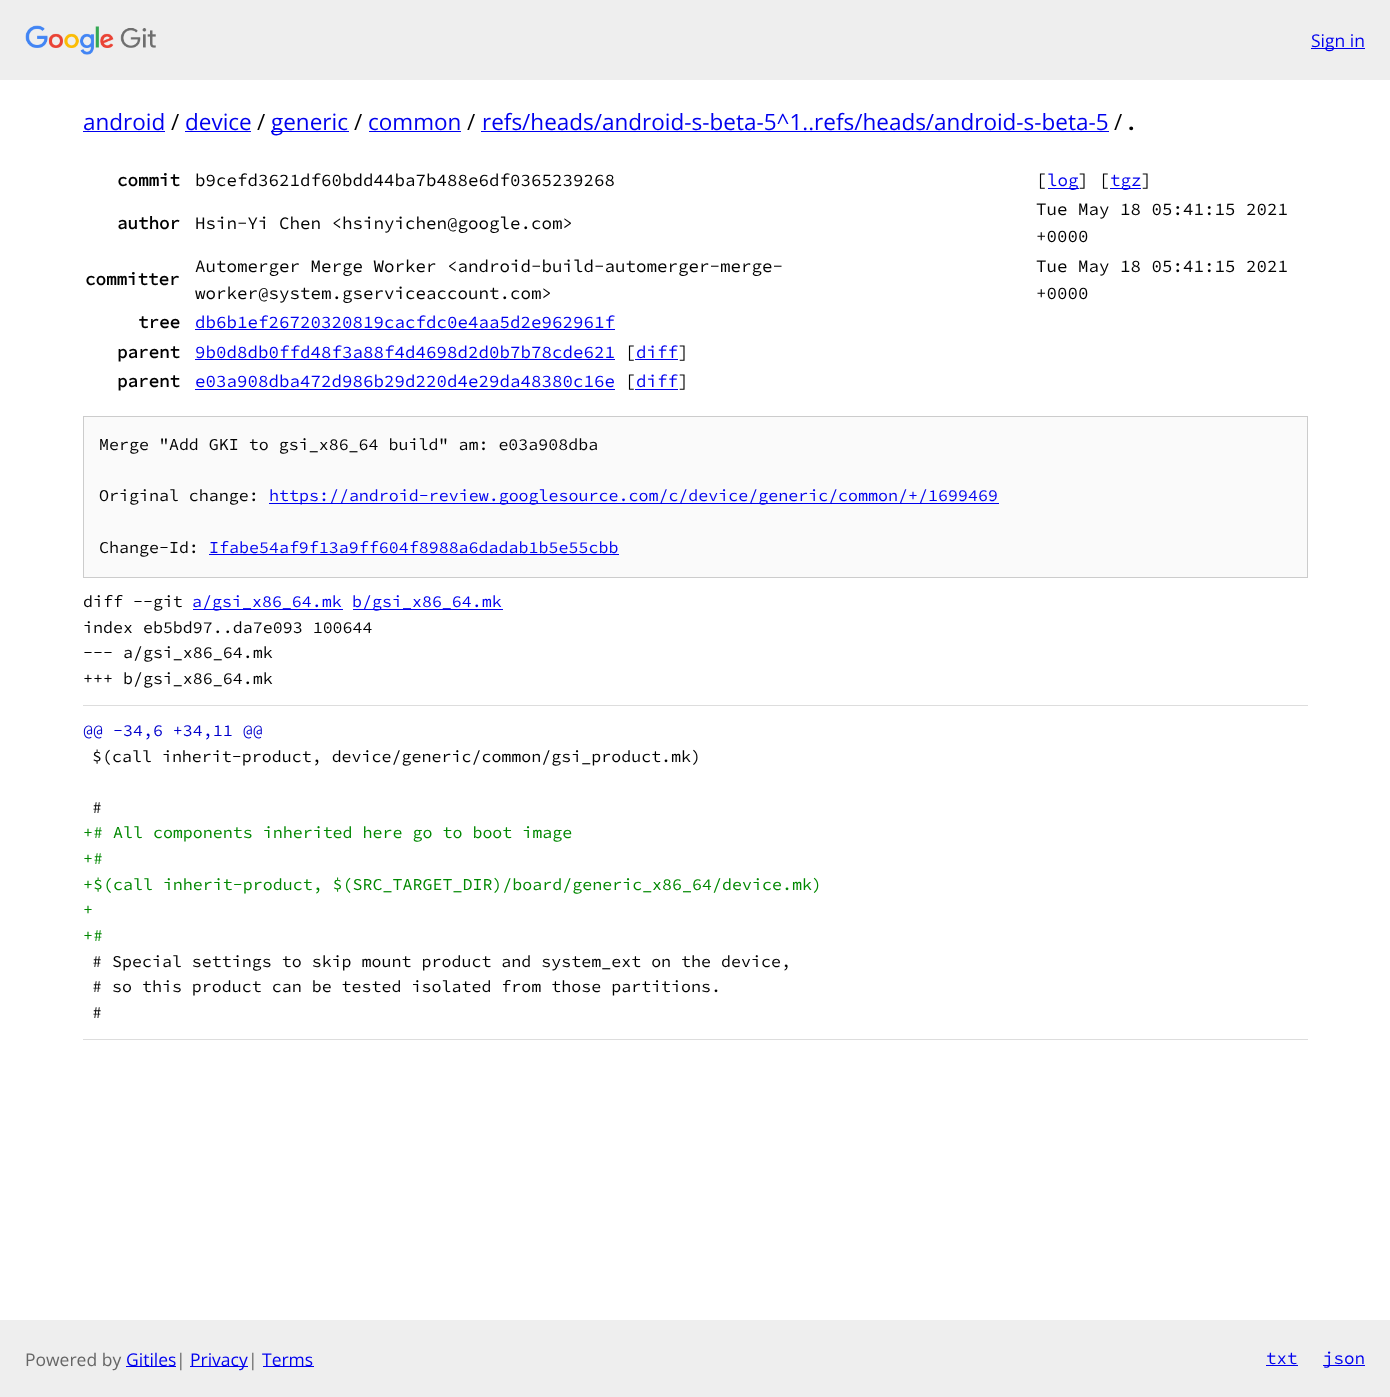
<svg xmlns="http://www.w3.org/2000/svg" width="1390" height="1397">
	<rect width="100%" height="100%" fill="#FFFFFF" />
	<rect x="0" y="0" width="1390" height="80" fill="#EEEEEE" />
	<image x="25" y="25" width="131" height="30" href="assets/img1.png" />
	<rect x="1311" y="48" width="54" height="1" fill="#0000EE" />
	<text x="1311" y="47" font-family="Open Sans" font-size="17.5" fill="#0000EE">Sign in</text>
	<text x="83" y="130" font-family="Open Sans" font-size="22.5" fill="#0000EE">android</text>
	<rect x="83" y="131" width="82" height="1" fill="#0000EE" />
	<text x="171" y="130" font-family="Open Sans" font-size="22.5" fill="#000000">/</text>
	<text x="185" y="130" font-family="Open Sans" font-size="22.5" fill="#0000EE">device</text>
	<rect x="185" y="131" width="66" height="1" fill="#0000EE" />
	<text x="257" y="130" font-family="Open Sans" font-size="22.5" fill="#000000">/</text>
	<rect x="271" y="131" width="78" height="1" fill="#0000EE" />
	<text x="271" y="130" font-family="Open Sans" font-size="22.5" fill="#0000EE">generic</text>
	<text x="354" y="130" font-family="Open Sans" font-size="22.5" fill="#000000">/</text>
	<text x="368" y="130" font-family="Open Sans" font-size="22.5" fill="#0000EE">common</text>
	<rect x="369" y="131" width="92" height="1" fill="#0000EE" />
	<text x="467" y="130" font-family="Open Sans" font-size="22.5" fill="#000000">/</text>
	<text x="482" y="130" font-family="Open Sans" font-size="22.5" fill="#0000EE">refs/heads/android-s-beta-5^1..refs/heads/android-s-beta-5</text>
	<rect x="481" y="131" width="628" height="1" fill="#0000EE" />
	<text x="1114" y="130" font-family="Open Sans" font-size="22.5" fill="#000000">/</text>
	<text x="1128" y="130" font-family="Open Sans" font-size="22.5" font-weight="700" fill="#000000">.</text>
	<text x="117" y="186" font-family="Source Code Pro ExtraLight" font-size="17.5" font-weight="700" fill="#000000">commit</text>
	<g font-family="Source Code Pro ExtraLight" font-size="17.5" font-weight="200" fill="#000000">
		<text x="195" y="186">b9cefd3621df60bdd44ba7b488e6df0365239268</text>
		<text x="1036" y="186">[</text>
	</g>
	<rect x="1048" y="188" width="31" height="1" fill="#0000EE" />
	<text x="1047" y="186" font-family="Source Code Pro ExtraLight" font-size="17.5" font-weight="200" fill="#0000EE">log</text>
	<text x="1078" y="186" font-family="Source Code Pro ExtraLight" font-size="17.5" font-weight="200" fill="#000000">] [</text>
	<rect x="1110" y="188" width="31" height="1" fill="#0000EE" />
	<text x="1110" y="186" font-family="Source Code Pro ExtraLight" font-size="17.5" font-weight="200" fill="#0000EE">tgz</text>
	<text x="1141" y="186" font-family="Source Code Pro ExtraLight" font-size="17.5" font-weight="200" fill="#000000">]</text>
	<text x="117" y="229" font-family="Source Code Pro ExtraLight" font-size="17.5" font-weight="700" fill="#000000">author</text>
	<g font-family="Source Code Pro ExtraLight" font-size="17.5" font-weight="200" fill="#000000">
		<text x="195" y="229">Hsin-Yi Chen &lt;hsinyichen@google.com&gt;</text>
		<text x="1036" y="215">Tue May 18 05:41:15 2021</text>
		<text x="1036" y="242">+0000</text>
	</g>
	<text x="85" y="285" font-family="Source Code Pro ExtraLight" font-size="17.5" font-weight="700" fill="#000000">committer</text>
	<g font-family="Source Code Pro ExtraLight" font-size="17.5" font-weight="200" fill="#000000">
		<text x="195" y="272">Automerger Merge Worker &lt;android-build-automerger-merge-</text>
		<text x="195" y="299">worker@system.gserviceaccount.com&gt;</text>
		<text x="1036" y="272">Tue May 18 05:41:15 2021</text>
		<text x="1036" y="299">+0000</text>
	</g>
	<text x="138" y="328" font-family="Source Code Pro ExtraLight" font-size="17.5" font-weight="700" fill="#000000">tree</text>
	<text x="195" y="328" font-family="Source Code Pro ExtraLight" font-size="17.5" font-weight="200" fill="#0000EE">db6b1ef26720320819cacfdc0e4aa5d2e962961f</text>
	<rect x="195" y="329" width="420" height="1" fill="#0000EE" />
	<text x="117" y="358" font-family="Source Code Pro ExtraLight" font-size="17.5" font-weight="700" fill="#000000">parent</text>
	<text x="195" y="358" font-family="Source Code Pro ExtraLight" font-size="17.5" font-weight="200" fill="#0000EE">9b0d8db0ffd48f3a88f4d4698d2d0b7b78cde621</text>
	<rect x="195" y="359" width="420" height="1" fill="#0000EE" />
	<text x="625" y="358" font-family="Source Code Pro ExtraLight" font-size="17.5" font-weight="200" fill="#000000">[</text>
	<rect x="635" y="359" width="43" height="1" fill="#0000EE" />
	<text x="636" y="358" font-family="Source Code Pro ExtraLight" font-size="17.5" font-weight="200" fill="#0000EE">diff</text>
	<text x="678" y="358" font-family="Source Code Pro ExtraLight" font-size="17.5" font-weight="200" fill="#000000">]</text>
	<text x="117" y="387" font-family="Source Code Pro ExtraLight" font-size="17.5" font-weight="700" fill="#000000">parent</text>
	<text x="195" y="387" font-family="Source Code Pro ExtraLight" font-size="17.5" font-weight="200" fill="#0000EE">e03a908dba472d986b29d220d4e29da48380c16e</text>
	<rect x="195" y="389" width="420" height="1" fill="#0000EE" />
	<text x="625" y="387" font-family="Source Code Pro ExtraLight" font-size="17.5" font-weight="200" fill="#000000">[</text>
	<rect x="635" y="389" width="43" height="1" fill="#0000EE" />
	<text x="636" y="387" font-family="Source Code Pro ExtraLight" font-size="17.5" font-weight="200" fill="#0000EE">diff</text>
	<text x="678" y="387" font-family="Source Code Pro ExtraLight" font-size="17.5" font-weight="200" fill="#000000">]</text>
	<rect x="83.5" y="416.5" width="1224" height="161" fill="#FAFAFA" stroke="#CCCCCC" />
	<g font-family="Source Code Pro ExtraLight" font-size="16.65" font-weight="200" fill="#000000">
		<text x="99" y="450">Merge "Add GKI to gsi_x86_64 build" am: e03a908dba</text>
		<text x="99" y="501">Original change:</text>
	</g>
	<rect x="269" y="503" width="730" height="1" fill="#0000EE" />
	<text x="269" y="501" font-family="Source Code Pro ExtraLight" font-size="16.65" font-weight="200" fill="#0000EE">https://android-review.googlesource.com/c/device/generic/common/+/1699469</text>
	<text x="99" y="553" font-family="Source Code Pro ExtraLight" font-size="16.65" font-weight="200" fill="#000000">Change-Id:</text>
	<text x="209" y="553" font-family="Source Code Pro ExtraLight" font-size="16.65" font-weight="200" fill="#0000EE">Ifabe54af9f13a9ff604f8988a6dadab1b5e55cbb</text>
	<rect x="209" y="554" width="410" height="1" fill="#0000EE" />
	<text x="83" y="607" font-family="Source Code Pro ExtraLight" font-size="16.65" font-weight="200" fill="#000000">diff --git</text>
	<rect x="193" y="609" width="150" height="1" fill="#0000EE" />
	<text x="192" y="607" font-family="Source Code Pro ExtraLight" font-size="16.65" font-weight="200" fill="#0000EE">a/gsi_x86_64.mk</text>
	<rect x="353" y="609" width="150" height="1" fill="#0000EE" />
	<text x="352" y="607" font-family="Source Code Pro ExtraLight" font-size="16.65" font-weight="200" fill="#0000EE">b/gsi_x86_64.mk</text>
	<g font-family="Source Code Pro ExtraLight" font-size="16.65" font-weight="200" fill="#000000">
		<text x="83" y="633">index eb5bd97..da7e093 100644</text>
		<text x="83" y="658">--- a/gsi_x86_64.mk</text>
		<text x="83" y="684">+++ b/gsi_x86_64.mk</text>
	</g>
	<rect x="83" y="705" width="1225" height="1" fill="#DDDDDD" />
	<rect x="83" y="1039" width="1225" height="1" fill="#DDDDDD" />
	<text x="83" y="736" font-family="Source Code Pro ExtraLight" font-size="16.65" font-weight="200" fill="#0000CC">@@ -34,6 +34,11 @@</text>
	<g font-family="Source Code Pro ExtraLight" font-size="16.65" font-weight="200" fill="#000000">
		<text x="92" y="762">$(call inherit-product, device/generic/common/gsi_product.mk)</text>
		<text x="92" y="813">#</text>
	</g>
	<g font-family="Source Code Pro ExtraLight" font-size="16.65" font-weight="200" fill="#008800">
		<text x="83" y="838">+# All components inherited here go to boot image</text>
		<text x="83" y="864">+#</text>
		<text x="83" y="890">+$(call inherit-product, $(SRC_TARGET_DIR)/board/generic_x86_64/device.mk)</text>
		<text x="83" y="915">+</text>
		<text x="83" y="941">+#</text>
	</g>
	<g font-family="Source Code Pro ExtraLight" font-size="16.65" font-weight="200" fill="#000000">
		<text x="92" y="967"># Special settings to skip mount product and system_ext on the device,</text>
		<text x="92" y="992"># so this product can be tested isolated from those partitions.</text>
		<text x="92" y="1018">#</text>
	</g>
	<rect x="0" y="1320" width="1390" height="77" fill="#EEEEEE" />
	<text x="25" y="1366" font-family="Open Sans" font-size="17.5" fill="#666666">Powered by</text>
	<rect x="126" y="1366" width="50" height="1" fill="#0000EE" />
	<text x="126" y="1366" font-family="Open Sans" font-size="17.5" fill="#0000EE">Gitiles</text>
	<text x="176" y="1366" font-family="Open Sans" font-size="17.5" fill="#666666">|</text>
	<rect x="190" y="1366" width="58" height="1" fill="#0000EE" />
	<text x="190" y="1366" font-family="Open Sans" font-size="17.5" fill="#0000EE">Privacy</text>
	<text x="248" y="1366" font-family="Open Sans" font-size="17.5" fill="#666666">|</text>
	<rect x="263" y="1366" width="51" height="1" fill="#0000EE" />
	<text x="262" y="1366" font-family="Open Sans" font-size="17.5" fill="#0000EE">Terms</text>
	<text x="1266" y="1364" font-family="Source Code Pro ExtraLight" font-size="17.5" font-weight="200" fill="#0000EE">txt</text>
	<rect x="1266" y="1365" width="32" height="1" fill="#0000EE" />
	<rect x="1323" y="1365" width="42" height="1" fill="#0000EE" />
	<text x="1323" y="1364" font-family="Source Code Pro ExtraLight" font-size="17.5" font-weight="200" fill="#0000EE">json</text>
</svg>
